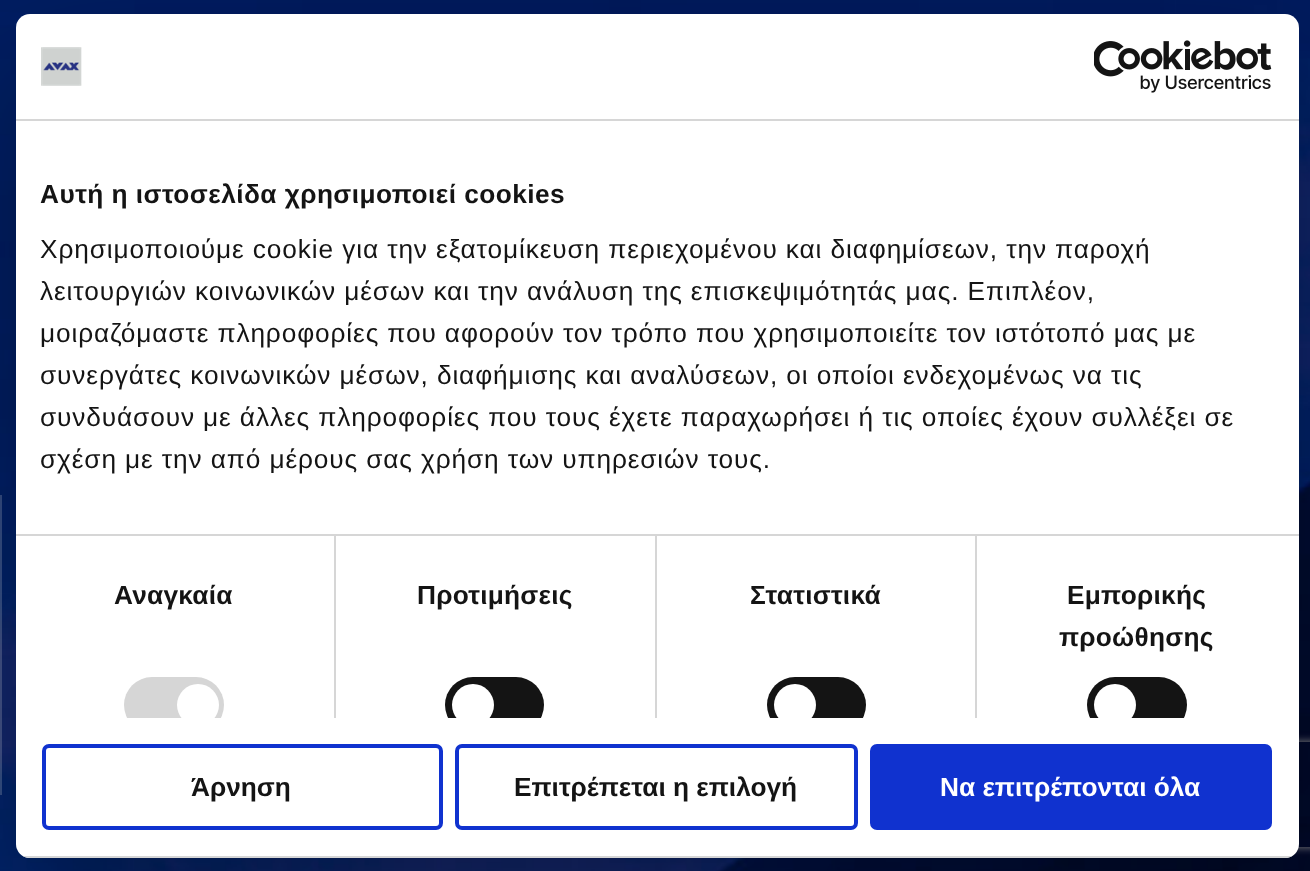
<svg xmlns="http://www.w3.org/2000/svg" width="1310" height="871">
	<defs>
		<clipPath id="clip1"><path d="M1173 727H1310V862H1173ZM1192 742H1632C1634 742 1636 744 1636 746V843C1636 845 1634 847 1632 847H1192C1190 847 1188 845 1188 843V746C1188 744 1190 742 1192 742Z" clip-rule="evenodd" /></clipPath>
		<clipPath id="clip2"><rect x="16" y="121" width="1283" height="597" /></clipPath>
		<clipPath id="clip3"><rect x="16" y="14" width="1283" height="844" rx="14" /></clipPath>
	</defs>
	<rect width="100%" height="100%" fill="#FFFFFF" />
	<image x="0" y="0" width="1310" height="871" href="assets/img1.png" />
	<rect x="0" y="495" width="2" height="300" fill="#F0F1F1" fill-opacity="0.22" />
	<rect x="16" y="70" width="1283" height="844" rx="14" fill="#000000" fill-opacity="0.3" filter="blur(59.5px)" />
	<g clip-path="url(#clip1)">
		<rect x="1188" y="742" width="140" height="105" rx="4" fill="#808080" filter="blur(4.5px)" />
	</g>
	<rect x="16" y="14" width="1283" height="844" rx="14" fill="#FFFFFF" />
	<rect x="16" y="119" width="1283" height="2" fill="#D6D6D6" />
	<image x="41" y="47" width="41" height="39" href="assets/img2.png" />
	<image x="1094" y="40" width="178" height="53" href="assets/img3.png" />
	<rect x="16" y="534" width="1283" height="2" fill="#D6D6D6" />
	<text x="40" y="203" font-family="Liberation Sans" font-size="26.25" font-weight="700" letter-spacing="0.45" fill="#141414">Αυτή η ιστοσελίδα χρησιμοποιεί cookies</text>
	<g font-family="Liberation Sans" font-size="26.25" letter-spacing="0.88" fill="#141414">
		<text x="40" y="258">Χρησιμοποιούμε cookie για την εξατομίκευση περιεχομένου και διαφημίσεων, την παροχή</text>
		<text x="40" y="300">λειτουργιών κοινωνικών μέσων και την ανάλυση της επισκεψιμότητάς μας. Επιπλέον,</text>
		<text x="40" y="342">μοιραζόμαστε πληροφορίες που αφορούν τον τρόπο που χρησιμοποιείτε τον ιστότοπό μας με</text>
		<text x="40" y="384">συνεργάτες κοινωνικών μέσων, διαφήμισης και αναλύσεων, οι οποίοι ενδεχομένως να τις</text>
		<text x="40" y="426">συνδυάσουν με άλλες πληροφορίες που τους έχετε παραχωρήσει ή τις οποίες έχουν συλλέξει σε</text>
		<text x="40" y="468">σχέση με την από μέρους σας χρήση των υπηρεσιών τους.</text>
	</g>
	<rect x="334" y="536" width="2" height="182" fill="#D6D6D6" />
	<text x="114" y="604" font-family="Liberation Sans" font-size="26.25" font-weight="700" letter-spacing="0.25" fill="#141414">Αναγκαία</text>
	<g clip-path="url(#clip2)">
		<rect x="124" y="677" width="100" height="56" rx="28" fill="#D6D6D6" />
		<circle cx="198" cy="705" r="21" fill="#FFFFFF" />
	</g>
	<rect x="655" y="536" width="2" height="182" fill="#D6D6D6" />
	<text x="417" y="604" font-family="Liberation Sans" font-size="26.25" font-weight="700" letter-spacing="0.25" fill="#141414">Προτιμήσεις</text>
	<g clip-path="url(#clip2)">
		<rect x="445" y="677" width="99" height="56" rx="28" fill="#141414" />
		<circle cx="473" cy="705" r="21" fill="#FFFFFF" />
	</g>
	<rect x="975" y="536" width="2" height="182" fill="#D6D6D6" />
	<text x="750" y="604" font-family="Liberation Sans" font-size="26.25" font-weight="700" letter-spacing="0.25" fill="#141414">Στατιστικά</text>
	<g clip-path="url(#clip2)">
		<rect x="767" y="677" width="99" height="56" rx="28" fill="#141414" />
		<circle cx="795" cy="705" r="21" fill="#FFFFFF" />
	</g>
	<g font-family="Liberation Sans" font-size="26.25" font-weight="700" letter-spacing="0.25" fill="#141414">
		<text x="1067" y="604">Εμπορικής</text>
		<text x="1059" y="646">προώθησης</text>
	</g>
	<g clip-path="url(#clip2)">
		<rect x="1087" y="677" width="100" height="56" rx="28" fill="#141414" />
		<circle cx="1115" cy="705" r="21" fill="#FFFFFF" />
	</g>
	<g clip-path="url(#clip3)">
		<rect x="16" y="856" width="1283" height="2" fill="#D6D6D6" />
	</g>
	<rect x="44" y="746" width="397" height="82" rx="5" fill="none" stroke="#1032CF" stroke-width="4" />
	<text x="191" y="796" font-family="Liberation Sans" font-size="26.25" font-weight="700" fill="#141414">Άρνηση</text>
	<rect x="457" y="746" width="399" height="82" rx="5" fill="none" stroke="#1032CF" stroke-width="4" />
	<text x="514" y="796" font-family="Liberation Sans" font-size="26.25" font-weight="700" fill="#141414">Επιτρέπεται η επιλογή</text>
	<rect x="872" y="746" width="398" height="82" rx="5" fill="#1032CF" stroke="#1032CF" stroke-width="4" />
	<text x="940" y="796" font-family="Liberation Sans" font-size="26.25" font-weight="700" fill="#FFFFFF">Να επιτρέπονται όλα</text>
</svg>
